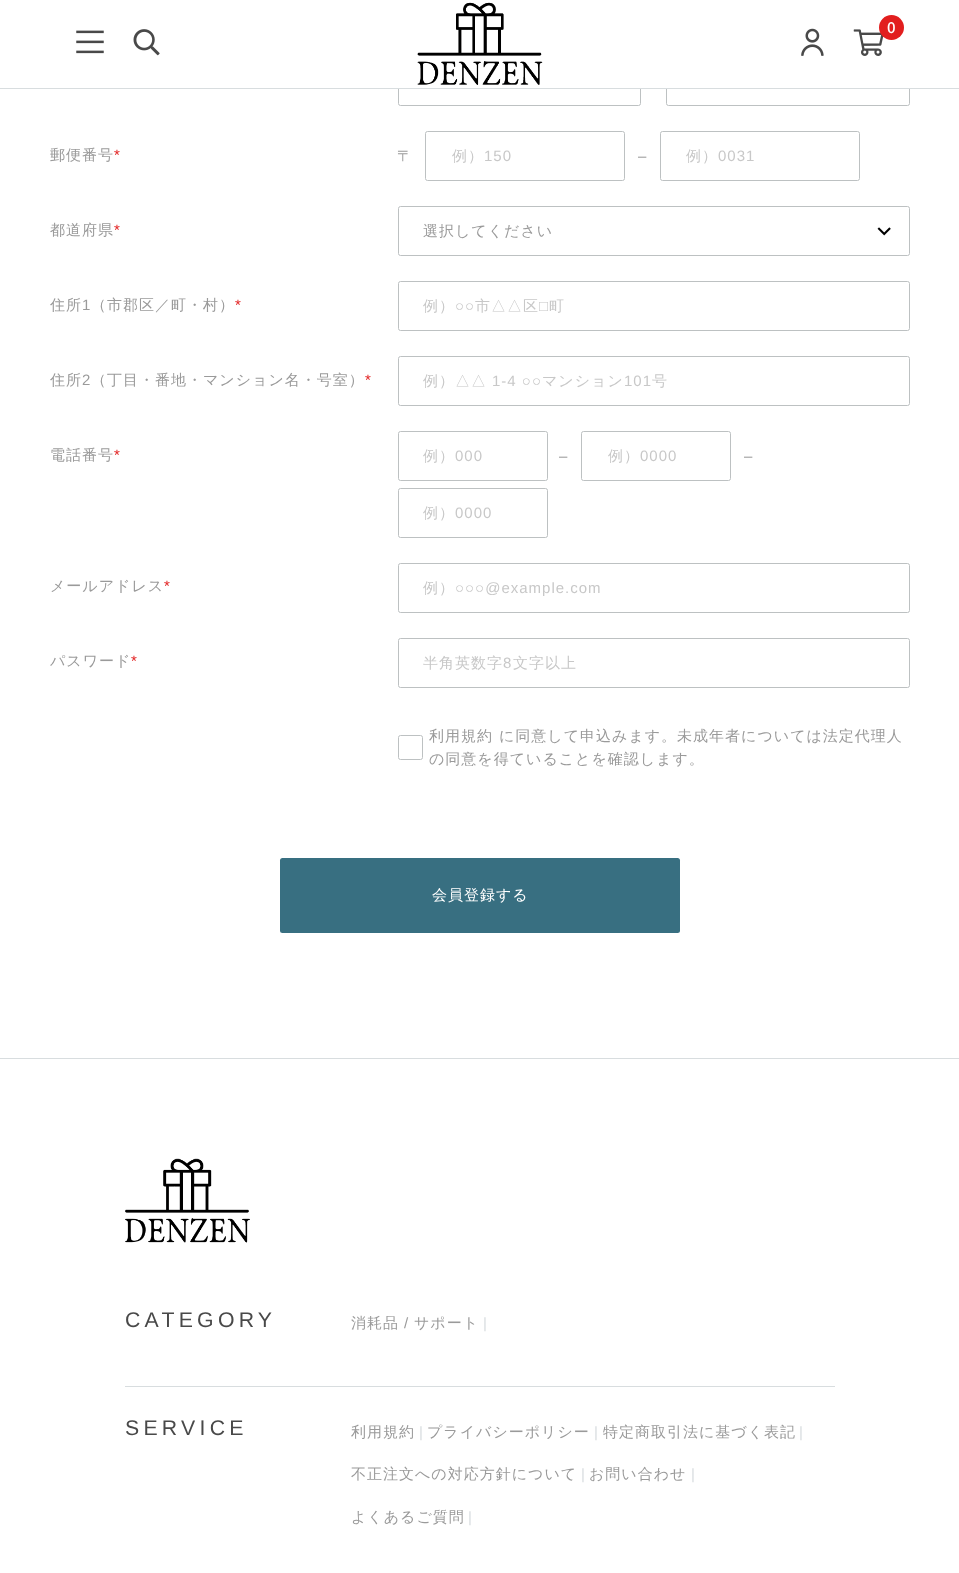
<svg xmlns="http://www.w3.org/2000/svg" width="959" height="1573">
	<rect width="100%" height="100%" fill="#FFFFFF" />
	<rect x="398.5" y="56.5" width="242" height="49" rx="2" fill="none" stroke="#BDC1C2" />
	<rect x="666.5" y="56.5" width="243" height="49" rx="2" fill="none" stroke="#BDC1C2" />
	<rect x="398" y="56" width="512" height="32" fill="#FFFFFF" />
	<rect x="0" y="88" width="959" height="1" fill="#D8DDDF" />
	<image x="417" y="2" width="126" height="83" href="assets/img1.png" />
	<image x="801" y="28" width="23" height="28" href="assets/img2.png" />
	<image x="853" y="29" width="31" height="27" href="assets/img3.png" />
	<circle cx="891.5" cy="27.5" r="12.5" fill="#E21E1E" />
	<text x="887" y="33" font-family="Noto Sans JP" font-size="15" font-weight="100" letter-spacing="1" fill="#FFFFFF">0</text>
	<image x="76" y="30" width="28" height="24" href="assets/img4.png" />
	<image x="133" y="29" width="27" height="27" href="assets/img5.png" />
	<text x="50" y="160" font-family="WenQuanYi Zen Hei" font-size="15" font-weight="500" letter-spacing="1" fill="#9A9A9A">郵便番号</text>
	<text x="114" y="160" font-family="Liberation Sans" font-size="15" letter-spacing="1" fill="#E21E1E">*</text>
	<text x="397" y="161" font-family="WenQuanYi Zen Hei" font-size="15" font-weight="500" letter-spacing="1" fill="#9A9A9A">〒</text>
	<rect x="425.5" y="131.5" width="199" height="49" rx="2" fill="none" stroke="#BDC1C2" />
	<text x="452" y="161" font-family="WenQuanYi Zen Hei" font-size="15" font-weight="500" letter-spacing="1" fill="#C8C8C8">例）</text>
	<text x="484" y="161" font-family="Liberation Sans" font-size="15" letter-spacing="1" fill="#C8C8C8">150</text>
	<text x="638" y="161" font-family="Liberation Sans" font-size="15" letter-spacing="1" fill="#9A9A9A">–</text>
	<rect x="660.5" y="131.5" width="199" height="49" rx="2" fill="none" stroke="#BDC1C2" />
	<text x="686" y="161" font-family="WenQuanYi Zen Hei" font-size="15" font-weight="500" letter-spacing="1" fill="#C8C8C8">例）</text>
	<text x="718" y="161" font-family="Liberation Sans" font-size="15" letter-spacing="1" fill="#C8C8C8">0031</text>
	<text x="50" y="235" font-family="WenQuanYi Zen Hei" font-size="15" font-weight="500" letter-spacing="1" fill="#9A9A9A">都道府県</text>
	<text x="114" y="235" font-family="Liberation Sans" font-size="15" letter-spacing="1" fill="#E21E1E">*</text>
	<rect x="398.5" y="206.5" width="511" height="49" rx="2" fill="none" stroke="#BDC1C2" />
	<text x="423" y="236" font-family="WenQuanYi Zen Hei" font-size="15" font-weight="500" letter-spacing="1" fill="#9A9A9A">選択してください</text>
	<image x="877" y="227" width="14" height="9" href="assets/img6.png" />
	<text x="50" y="310" font-family="WenQuanYi Zen Hei" font-size="15" font-weight="500" letter-spacing="1" fill="#9A9A9A">住所</text>
	<text x="82" y="310" font-family="Liberation Sans" font-size="15" letter-spacing="1" fill="#9A9A9A">1</text>
	<text x="91" y="310" font-family="WenQuanYi Zen Hei" font-size="15" font-weight="500" letter-spacing="1" fill="#9A9A9A">（市郡区／町・村）</text>
	<text x="235" y="310" font-family="Liberation Sans" font-size="15" letter-spacing="1" fill="#E21E1E">*</text>
	<rect x="398.5" y="281.5" width="511" height="49" rx="2" fill="none" stroke="#BDC1C2" />
	<text x="423" y="311" font-family="WenQuanYi Zen Hei" font-size="15" font-weight="500" letter-spacing="1" fill="#C8C8C8">例）</text>
	<text x="455" y="311" font-family="Liberation Sans" font-size="15" letter-spacing="1" fill="#C8C8C8">○○</text>
	<text x="475" y="311" font-family="WenQuanYi Zen Hei" font-size="15" font-weight="500" letter-spacing="1" fill="#C8C8C8">市△△区</text>
	<text x="539" y="311" font-family="Liberation Sans" font-size="15" letter-spacing="1" fill="#C8C8C8">□</text>
	<text x="549" y="311" font-family="WenQuanYi Zen Hei" font-size="15" font-weight="500" letter-spacing="1" fill="#C8C8C8">町</text>
	<text x="50" y="385" font-family="WenQuanYi Zen Hei" font-size="15" font-weight="500" letter-spacing="1" fill="#9A9A9A">住所</text>
	<text x="82" y="385" font-family="Liberation Sans" font-size="15" letter-spacing="1" fill="#9A9A9A">2</text>
	<text x="91" y="385" font-family="WenQuanYi Zen Hei" font-size="15" font-weight="500" letter-spacing="1" fill="#9A9A9A">（丁目・番地・マンション名・号室）</text>
	<text x="365" y="385" font-family="Liberation Sans" font-size="15" letter-spacing="1" fill="#E21E1E">*</text>
	<rect x="398.5" y="356.5" width="511" height="49" rx="2" fill="none" stroke="#BDC1C2" />
	<text x="423" y="386" font-family="WenQuanYi Zen Hei" font-size="15" font-weight="500" letter-spacing="1" fill="#C8C8C8">例）△△</text>
	<text x="492" y="386" font-family="Liberation Sans" font-size="15" letter-spacing="1" fill="#C8C8C8">1-4 ○○</text>
	<text x="542" y="386" font-family="WenQuanYi Zen Hei" font-size="15" font-weight="500" letter-spacing="1" fill="#C8C8C8">マンション</text>
	<text x="624" y="386" font-family="Liberation Sans" font-size="15" letter-spacing="1" fill="#C8C8C8">101</text>
	<text x="652" y="386" font-family="WenQuanYi Zen Hei" font-size="15" font-weight="500" letter-spacing="1" fill="#C8C8C8">号</text>
	<text x="50" y="460" font-family="WenQuanYi Zen Hei" font-size="15" font-weight="500" letter-spacing="1" fill="#9A9A9A">電話番号</text>
	<text x="114" y="460" font-family="Liberation Sans" font-size="15" letter-spacing="1" fill="#E21E1E">*</text>
	<rect x="398.5" y="431.5" width="149" height="49" rx="2" fill="none" stroke="#BDC1C2" />
	<text x="423" y="461" font-family="WenQuanYi Zen Hei" font-size="15" font-weight="500" letter-spacing="1" fill="#C8C8C8">例）</text>
	<text x="455" y="461" font-family="Liberation Sans" font-size="15" letter-spacing="1" fill="#C8C8C8">000</text>
	<text x="559" y="461" font-family="Liberation Sans" font-size="15" letter-spacing="1" fill="#9A9A9A">–</text>
	<rect x="581.5" y="431.5" width="149" height="49" rx="2" fill="none" stroke="#BDC1C2" />
	<text x="608" y="461" font-family="WenQuanYi Zen Hei" font-size="15" font-weight="500" letter-spacing="1" fill="#C8C8C8">例）</text>
	<text x="640" y="461" font-family="Liberation Sans" font-size="15" letter-spacing="1" fill="#C8C8C8">0000</text>
	<text x="744" y="461" font-family="Liberation Sans" font-size="15" letter-spacing="1" fill="#9A9A9A">–</text>
	<rect x="398.5" y="488.5" width="149" height="49" rx="2" fill="none" stroke="#BDC1C2" />
	<text x="423" y="518" font-family="WenQuanYi Zen Hei" font-size="15" font-weight="500" letter-spacing="1" fill="#C8C8C8">例）</text>
	<text x="455" y="518" font-family="Liberation Sans" font-size="15" letter-spacing="1" fill="#C8C8C8">0000</text>
	<text x="50" y="591" font-family="WenQuanYi Zen Hei" font-size="15" font-weight="500" letter-spacing="1" fill="#9A9A9A">メールアドレス</text>
	<text x="164" y="591" font-family="Liberation Sans" font-size="15" letter-spacing="1" fill="#E21E1E">*</text>
	<rect x="398.5" y="563.5" width="511" height="49" rx="2" fill="none" stroke="#BDC1C2" />
	<text x="423" y="593" font-family="WenQuanYi Zen Hei" font-size="15" font-weight="500" letter-spacing="1" fill="#C8C8C8">例）</text>
	<text x="455" y="593" font-family="Liberation Sans" font-size="15" letter-spacing="1" fill="#C8C8C8">○○○@example.com</text>
	<text x="50" y="666" font-family="WenQuanYi Zen Hei" font-size="15" font-weight="500" letter-spacing="1" fill="#9A9A9A">パスワード</text>
	<text x="131" y="666" font-family="Liberation Sans" font-size="15" letter-spacing="1" fill="#E21E1E">*</text>
	<rect x="398.5" y="638.5" width="511" height="49" rx="2" fill="none" stroke="#BDC1C2" />
	<text x="423" y="668" font-family="WenQuanYi Zen Hei" font-size="15" font-weight="500" letter-spacing="1" fill="#C8C8C8">半角英数字</text>
	<text x="503" y="668" font-family="Liberation Sans" font-size="15" letter-spacing="1" fill="#C8C8C8">8</text>
	<text x="513" y="668" font-family="WenQuanYi Zen Hei" font-size="15" font-weight="500" letter-spacing="1" fill="#C8C8C8">文字以上</text>
	<rect x="398.5" y="735.5" width="24" height="24" rx="2" fill="none" stroke="#BDC1C2" />
	<g font-family="WenQuanYi Zen Hei" font-size="15" font-weight="500" letter-spacing="1" fill="#9A9A9A">
		<text x="429" y="741">利用規約</text>
		<text x="499" y="741">に同意して申込みます。未成年者については法定代理人</text>
		<text x="429" y="764">の同意を得ていることを確認します。</text>
	</g>
	<rect x="280" y="858" width="400" height="75" rx="2.5" fill="#386F81" />
	<text x="432" y="900" font-family="WenQuanYi Zen Hei" font-size="15" font-weight="500" letter-spacing="1" fill="#FFFFFF">会員登録する</text>
	<rect x="0" y="1058" width="959" height="1" fill="#D8DDDF" />
	<image x="125" y="1158" width="125" height="85" href="assets/img7.png" />
	<rect x="125" y="1386" width="710" height="1" fill="#D8DDDF" />
	<text x="125" y="1327" font-family="Liberation Sans" font-size="21.25" letter-spacing="4.25" fill="#494949">CATEGORY</text>
	<text x="351" y="1328" font-family="WenQuanYi Zen Hei" font-size="15" font-weight="500" letter-spacing="1" fill="#9A9A9A">消耗品</text>
	<text x="404" y="1328" font-family="Liberation Sans" font-size="15" letter-spacing="1" fill="#9A9A9A">/</text>
	<text x="414" y="1328" font-family="WenQuanYi Zen Hei" font-size="15" font-weight="500" letter-spacing="1" fill="#9A9A9A">サポート</text>
	<text x="483" y="1328" font-family="Liberation Sans" font-size="15" letter-spacing="1" fill="#D8DDDF">|</text>
	<text x="125" y="1435" font-family="Liberation Sans" font-size="21.25" letter-spacing="4.25" fill="#494949">SERVICE</text>
	<text x="351" y="1437" font-family="WenQuanYi Zen Hei" font-size="15" font-weight="500" letter-spacing="1" fill="#9A9A9A">利用規約</text>
	<text x="419" y="1437" font-family="Liberation Sans" font-size="15" letter-spacing="1" fill="#D8DDDF">|</text>
	<text x="427" y="1437" font-family="WenQuanYi Zen Hei" font-size="15" font-weight="500" letter-spacing="1" fill="#9A9A9A">プライバシーポリシー</text>
	<text x="594" y="1437" font-family="Liberation Sans" font-size="15" letter-spacing="1" fill="#D8DDDF">|</text>
	<text x="603" y="1437" font-family="WenQuanYi Zen Hei" font-size="15" font-weight="500" letter-spacing="1" fill="#9A9A9A">特定商取引法に基づく表記</text>
	<text x="799" y="1437" font-family="Liberation Sans" font-size="15" letter-spacing="1" fill="#D8DDDF">|</text>
	<text x="351" y="1479" font-family="WenQuanYi Zen Hei" font-size="15" font-weight="500" letter-spacing="1" fill="#9A9A9A">不正注文への対応方針について</text>
	<text x="581" y="1479" font-family="Liberation Sans" font-size="15" letter-spacing="1" fill="#D8DDDF">|</text>
	<text x="589" y="1479" font-family="WenQuanYi Zen Hei" font-size="15" font-weight="500" letter-spacing="1" fill="#9A9A9A">お問い合わせ</text>
	<text x="691" y="1479" font-family="Liberation Sans" font-size="15" letter-spacing="1" fill="#D8DDDF">|</text>
	<text x="351" y="1522" font-family="WenQuanYi Zen Hei" font-size="15" font-weight="500" letter-spacing="1" fill="#9A9A9A">よくあるご質問</text>
	<text x="468" y="1522" font-family="Liberation Sans" font-size="15" letter-spacing="1" fill="#D8DDDF">|</text>
</svg>
